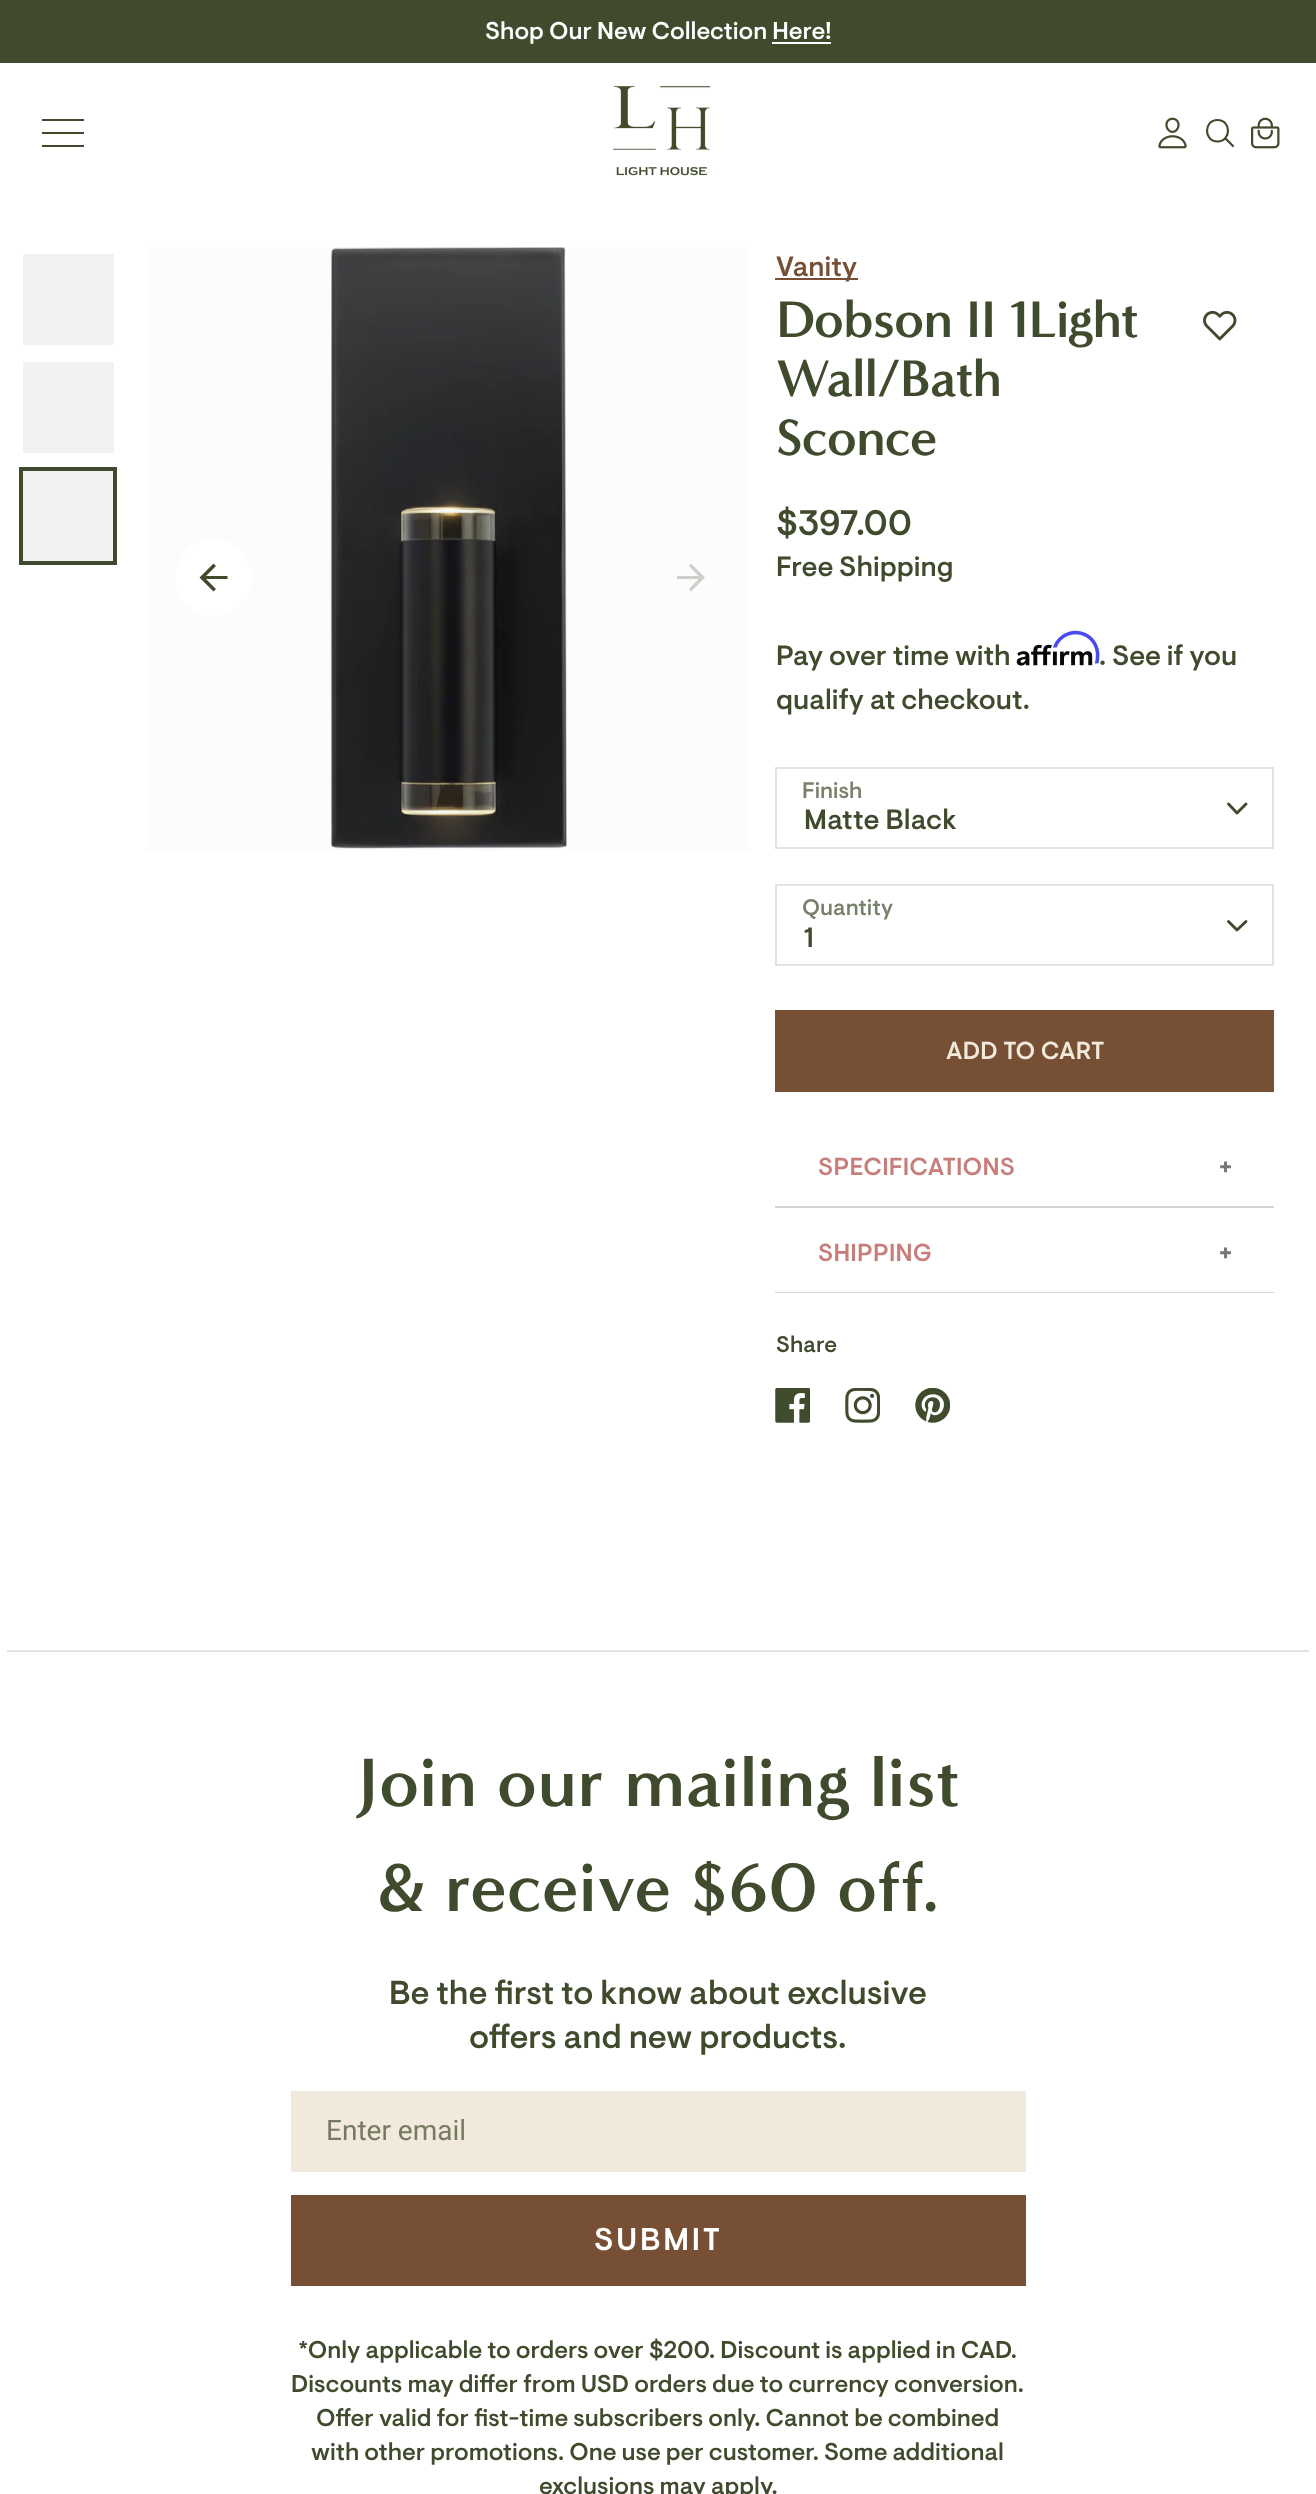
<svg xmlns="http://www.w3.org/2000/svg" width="1316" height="2494">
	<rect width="100%" height="100%" fill="#FFFFFF" />
	<rect x="0" y="0" width="1316" height="63" fill="#404A2C" />
	<text x="485" y="39" font-family="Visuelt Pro" font-size="24.25" font-weight="500" fill="#FFFFFF">Shop Our New Collection Here!</text>
	<rect x="772" y="42" width="59" height="2" fill="#FFFFFF" />
	<rect x="42" y="119" width="42" height="2" fill="#404A2C" />
	<rect x="42" y="132" width="42" height="2" fill="#404A2C" />
	<rect x="42" y="145" width="42" height="2" fill="#404A2C" />
	<image x="613" y="86" width="98" height="90" href="assets/img1.png" />
	<image x="1158" y="117" width="29" height="32" href="assets/img2.png" />
	<path d="M1217.5 120C1203.5 120 1203.5 141.5 1217.5 141.5C1231.5 141.5 1231.5 120 1217.5 120Z" fill="none" stroke="#404A2C" stroke-width="2.2" />
	<path d="M1225.5 138.5L1233 146" fill="none" stroke="#404A2C" stroke-width="2.2" stroke-linecap="round" />
	<image x="1251" y="117" width="29" height="32" href="assets/img3.png" />
	<rect x="23" y="254" width="91" height="91" fill="#F2F2F2" />
	<rect x="23" y="362" width="91" height="91" fill="#F2F2F2" />
	<rect x="21" y="469" width="94" height="94" fill="none" stroke="#404A2C" stroke-width="4" />
	<rect x="23" y="471" width="91" height="91" fill="#000000" fill-opacity="0.05" />
	<rect x="147" y="247" width="602" height="604" fill="#FCFCFC" />
	<image x="330" y="247" width="237" height="603" href="assets/img4.png" />
	<circle cx="213.5" cy="577.5" r="38.5" fill="#FFFFFF" />
	<path d="M227.5 576H206L216 566L213.5 563.5L199.5 577.5L213.5 591.5L216 589L206 579H227.5Z" fill="#404A2C" />
	<path d="M691 563.5L689 566L698.5 576H677V579H698.5L689 589L691 591.5L705 577.5Z" fill="#CDD0C8" />
	<rect x="775" y="278" width="83" height="2" fill="#764F34" />
	<text x="776" y="276" font-family="Visuelt Pro" font-size="28" font-weight="500" fill="#764F34">Vanity</text>
	<g font-family="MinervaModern" font-size="52.5" font-weight="700" letter-spacing="-1" fill="#404A2C">
		<text x="776" y="337">Dobson II 1Light</text>
		<text x="776" y="396">Wall/Bath</text>
		<text x="776" y="455">Sconce</text>
	</g>
	<image x="1203" y="310" width="34" height="31" href="assets/img5.png" />
	<text x="776" y="535" font-family="Visuelt Pro" font-size="35.5" font-weight="500" fill="#404A2C">$397.00</text>
	<g font-family="Visuelt Pro" font-size="28" font-weight="500" fill="#404A2C">
		<text x="776" y="576">Free Shipping</text>
		<text x="776" y="665">Pay over time with</text>
	</g>
	<image x="1016" y="644" width="77" height="22" href="assets/img7.png" />
	<image x="1053" y="630" width="47" height="34" href="assets/img6.png" />
	<g font-family="Visuelt Pro" font-size="28" font-weight="500" fill="#404A2C">
		<text x="1099" y="665">. See if you</text>
		<text x="776" y="709">qualify at checkout.</text>
	</g>
	<text x="802" y="798" font-family="Visuelt Pro" font-size="22.5" font-weight="500" fill="#79806B">Finish</text>
	<rect x="776" y="768" width="497" height="80" fill="none" stroke="#E2E4DF" stroke-width="2" />
	<text x="804" y="829" font-family="Visuelt Pro" font-size="28" font-weight="500" letter-spacing="0.2" fill="#404A2C">Matte Black</text>
	<path d="M1228.5 804L1237 813L1246 804" fill="none" stroke="#404A2C" stroke-width="2.9" stroke-linecap="round" stroke-linejoin="round" />
	<text x="802" y="915" font-family="Visuelt Pro" font-size="22.5" font-weight="500" fill="#79806B">Quantity</text>
	<rect x="776" y="885" width="497" height="80" fill="none" stroke="#E2E4DF" stroke-width="2" />
	<text x="804" y="947" font-family="Visuelt Pro" font-size="28" font-weight="500" letter-spacing="0.2" fill="#404A2C">1</text>
	<path d="M1228.5 921.5L1237 930L1246 921.5" fill="none" stroke="#404A2C" stroke-width="2.9" stroke-linecap="round" stroke-linejoin="round" />
	<rect x="775" y="1010" width="499" height="82" fill="#764F34" />
	<text x="946" y="1059" font-family="Visuelt Pro" font-size="24.5" font-weight="500" letter-spacing="0.2" fill="#F1E9DB">ADD TO CART</text>
	<rect x="775" y="1206" width="499" height="2" fill="#D5D5D5" />
	<text x="818" y="1175" font-family="Visuelt Pro" font-size="24.5" font-weight="500" letter-spacing="0.2" fill="#C77E7A">SPECIFICATIONS</text>
	<text x="1219" y="1175" font-family="Visuelt Pro" font-size="24.5" font-weight="700" letter-spacing="0.2" fill="#777777">+</text>
	<rect x="775" y="1292" width="499" height="1" fill="#D5D5D5" />
	<text x="818" y="1261" font-family="Visuelt Pro" font-size="24.5" font-weight="500" letter-spacing="0.2" fill="#C77E7A">SHIPPING</text>
	<text x="1219" y="1261" font-family="Visuelt Pro" font-size="24.5" font-weight="700" letter-spacing="0.2" fill="#777777">+</text>
	<text x="776" y="1352" font-family="Visuelt Pro" font-size="22.5" font-weight="500" fill="#404A2C">Share</text>
	<image x="775" y="1388" width="35" height="35" href="assets/img8.png" />
	<image x="845" y="1388" width="35" height="35" href="assets/img9.png" />
	<image x="915" y="1388" width="35" height="35" href="assets/img10.png" />
	<rect x="7" y="1650" width="1302" height="2" fill="#E2E4DF" />
	<g font-family="MinervaModern" font-size="70" font-weight="700" fill="#404A2C">
		<text x="357" y="1806">Join our mailing list</text>
		<text x="376" y="1911">&amp; receive $60 off.</text>
	</g>
	<g font-family="Visuelt Pro" font-size="33.25" font-weight="500" fill="#404A2C">
		<text x="389" y="2004">Be the first to know about exclusive</text>
		<text x="469" y="2048">offers and new products.</text>
	</g>
	<rect x="291" y="2091" width="735" height="81" fill="#F1E9DB" />
	<text x="326" y="2140" font-family="Roboto" font-size="28" fill="#757A61">Enter email</text>
	<rect x="291" y="2195" width="735" height="91" fill="#764F34" />
	<text x="594" y="2250" font-family="Visuelt Pro" font-size="31.5" font-weight="500" letter-spacing="2.75" fill="#FFFFFF">SUBMIT</text>
	<g font-family="Visuelt Pro" font-size="24.25" font-weight="500" fill="#404A2C">
		<text x="298" y="2358">*Only applicable to orders over $200. Discount is applied in CAD.</text>
		<text x="291" y="2392">Discounts may differ from USD orders due to currency conversion.</text>
		<text x="316" y="2426">Offer valid for fist-time subscribers only. Cannot be combined</text>
		<text x="311" y="2460">with other promotions. One use per customer. Some additional</text>
		<text x="539" y="2494">exclusions may apply.</text>
	</g>
</svg>
